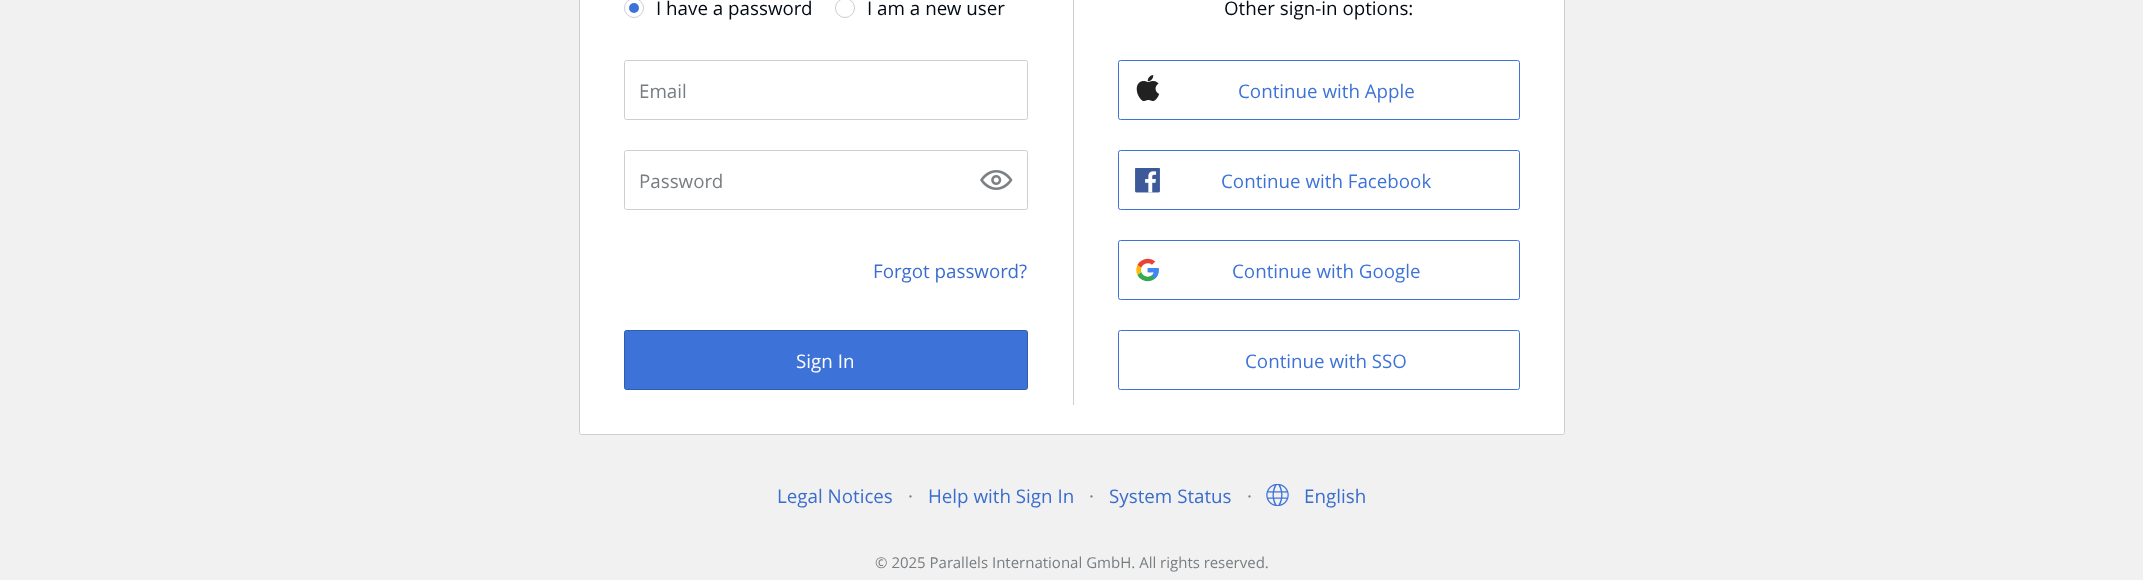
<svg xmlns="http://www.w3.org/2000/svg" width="2143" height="580">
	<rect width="100%" height="100%" fill="#F1F1F1" />
	<rect x="579.5" y="-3.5" width="985" height="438" rx="2" fill="#FFFFFF" stroke="#CDCED0" />
	<circle cx="634" cy="8" r="9.5" fill="none" stroke="#CDCED0" />
	<text x="656" y="15" font-family="Open Sans" font-size="18.75" fill="#000912">I have a password</text>
	<circle cx="634" cy="8" r="5" fill="#3D73D8" />
	<circle cx="845" cy="8" r="9.5" fill="none" stroke="#CDCED0" />
	<text x="867" y="15" font-family="Open Sans" font-size="18.75" fill="#000912">I am a new user</text>
	<rect x="624.5" y="60.5" width="403" height="59" rx="2" fill="none" stroke="#CDCED0" />
	<text x="639" y="98" font-family="Open Sans" font-size="18.75" fill="#787D81">Email</text>
	<rect x="624.5" y="150.5" width="403" height="59" rx="2" fill="none" stroke="#CDCED0" />
	<text x="639" y="188" font-family="Open Sans" font-size="18.75" fill="#787D81">Password</text>
	<image x="980" y="170" width="33" height="20" href="assets/img1.png" />
	<text x="873" y="278" font-family="Open Sans" font-size="18.75" fill="#3A6DCD">Forgot password?</text>
	<rect x="624.5" y="330.5" width="403" height="59" rx="2" fill="#3D73D8" stroke="#305CAC" />
	<text x="796" y="368" font-family="Open Sans" font-size="18.75" fill="#FFFFFF">Sign In</text>
	<text x="1224" y="15" font-family="Open Sans" font-size="18.75" fill="#000912">Other sign-in options:</text>
	<rect x="1118.5" y="60.5" width="401" height="59" rx="2" fill="none" stroke="#3D73D8" />
	<image x="1136" y="75" width="24" height="27" href="assets/img2.png" />
	<text x="1238" y="98" font-family="Open Sans" font-size="18.75" fill="#3D73D8">Continue with Apple</text>
	<rect x="1118.5" y="150.5" width="401" height="59" rx="2" fill="none" stroke="#3D73D8" />
	<image x="1135" y="168" width="25" height="25" href="assets/img3.png" />
	<text x="1221" y="188" font-family="Open Sans" font-size="18.75" fill="#3D73D8">Continue with Facebook</text>
	<rect x="1118.5" y="240.5" width="401" height="59" rx="2" fill="none" stroke="#3D73D8" />
	<image x="1136" y="258" width="23" height="24" href="assets/img4.png" />
	<text x="1232" y="278" font-family="Open Sans" font-size="18.75" fill="#3D73D8">Continue with Google</text>
	<rect x="1118.5" y="330.5" width="401" height="59" rx="2" fill="none" stroke="#3D73D8" />
	<text x="1245" y="368" font-family="Open Sans" font-size="18.75" fill="#3D73D8">Continue with SSO</text>
	<rect x="1073" y="0" width="1" height="405" fill="#CDCED0" />
	<text x="777" y="503" font-family="Open Sans" font-size="18.75" fill="#3A6DCD">Legal Notices</text>
	<text x="908" y="503" font-family="Open Sans" font-size="18.75" fill="#787D81">·</text>
	<text x="928" y="503" font-family="Open Sans" font-size="18.75" fill="#3A6DCD">Help with Sign In</text>
	<text x="1089" y="503" font-family="Open Sans" font-size="18.75" fill="#787D81">·</text>
	<text x="1109" y="503" font-family="Open Sans" font-size="18.75" fill="#3A6DCD">System Status</text>
	<text x="1247" y="503" font-family="Open Sans" font-size="18.75" fill="#787D81">·</text>
	<image x="1266" y="484" width="23" height="22" href="assets/img5.png" />
	<text x="1304" y="503" font-family="Open Sans" font-size="18.75" fill="#3A6DCD">English</text>
	<text x="875" y="568" font-family="Open Sans" font-size="15" fill="#787D81">© 2025 Parallels International GmbH. All rights reserved.</text>
</svg>
